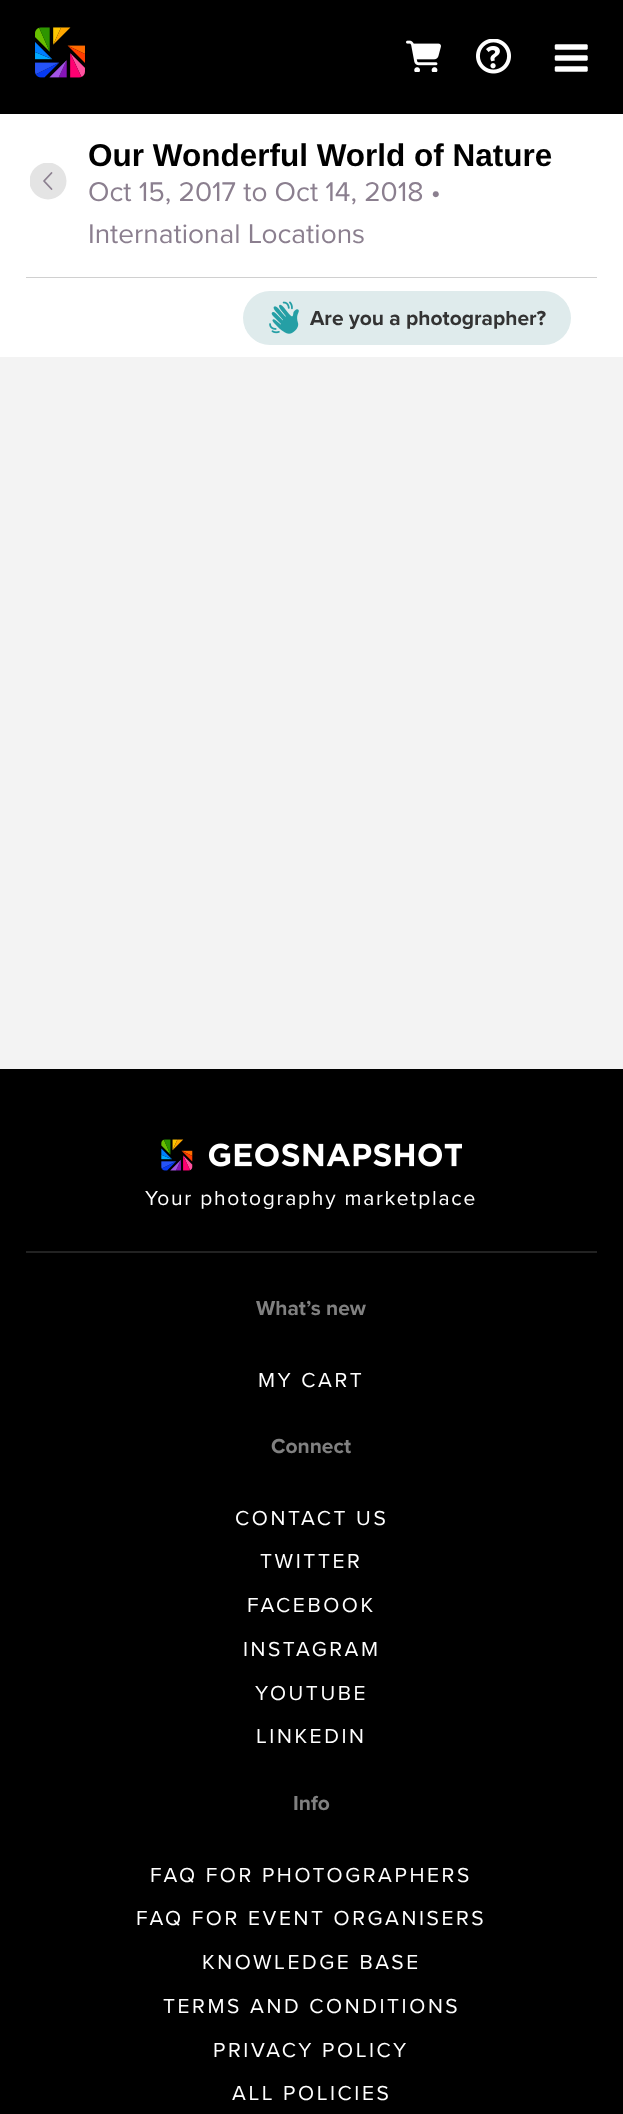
<svg xmlns="http://www.w3.org/2000/svg" width="623" height="2114">
	<defs>
		<clipPath id="clip1"><rect x="30" y="163" width="37" height="37" /></clipPath>
	</defs>
	<rect width="100%" height="100%" fill="#000000" />
	<image x="35" y="27" width="50" height="51" href="assets/img1.png" />
	<image x="406" y="40" width="35" height="32" href="assets/img2.png" />
	<image x="476" y="39" width="35" height="35" href="assets/img3.png" />
	<image x="554" y="44" width="34" height="28" href="assets/img4.png" />
	<rect x="0" y="357" width="623" height="712" fill="#F3F3F3" />
	<rect x="0" y="114" width="623" height="243" fill="#FFFFFF" />
	<rect x="26" y="277" width="571" height="1" fill="#D0D0D0" />
	<g clip-path="url(#clip1)">
		<circle cx="48" cy="181" r="18.5" fill="#E4E4E4" />
	</g>
	<path d="M51.5 173L44 181L51.5 189" fill="none" stroke="#8B7F8F" stroke-width="1.8" stroke-linecap="round" stroke-linejoin="round" />
	<text x="88" y="166" font-family="Liberation Sans" font-size="31.5" font-weight="700" fill="#000000">Our Wonderful World of Nature</text>
	<g font-family="Proxima Nova" font-size="28" fill="#8B7F8F">
		<text x="88" y="201">Oct 15, 2017 to Oct 14, 2018 •</text>
		<text x="88" y="243">International Locations</text>
	</g>
	<rect x="243" y="291" width="328" height="54" rx="27" fill="#DFEBEC" />
	<image x="269" y="301" width="30" height="33" href="assets/img5.png" />
	<text x="310" y="325" font-family="Proxima Nova" font-size="21" font-weight="700" fill="#333333">Are you a photographer?</text>
	<rect x="26" y="1251" width="571" height="2" fill="#222222" />
	<image x="161" y="1139" width="301" height="32" href="assets/img6.png" />
	<text x="145" y="1205" font-family="Proxima Nova" font-size="21" letter-spacing="1.75" fill="#FFFFFF">Your photography marketplace</text>
	<text x="256" y="1315" font-family="Proxima Nova" font-size="21" font-weight="700" fill="#808080">What’s new</text>
	<text x="258" y="1387" font-family="Proxima Nova" font-size="21" letter-spacing="2.6" fill="#FFFFFF">MY CART</text>
	<text x="271" y="1453" font-family="Proxima Nova" font-size="21" font-weight="700" fill="#808080">Connect</text>
	<g font-family="Proxima Nova" font-size="21" letter-spacing="2.6" fill="#FFFFFF">
		<text x="235" y="1525">CONTACT US</text>
		<text x="260" y="1568">TWITTER</text>
		<text x="247" y="1612">FACEBOOK</text>
		<text x="243" y="1656">INSTAGRAM</text>
		<text x="255" y="1700">YOUTUBE</text>
		<text x="256" y="1743">LINKEDIN</text>
	</g>
	<text x="293" y="1810" font-family="Proxima Nova" font-size="21" font-weight="700" fill="#808080">Info</text>
	<g font-family="Proxima Nova" font-size="21" letter-spacing="2.6" fill="#FFFFFF">
		<text x="150" y="1882">FAQ FOR PHOTOGRAPHERS</text>
		<text x="136" y="1925">FAQ FOR EVENT ORGANISERS</text>
		<text x="202" y="1969">KNOWLEDGE BASE</text>
		<text x="163" y="2013">TERMS AND CONDITIONS</text>
		<text x="213" y="2057">PRIVACY POLICY</text>
		<text x="232" y="2100">ALL POLICIES</text>
	</g>
</svg>
